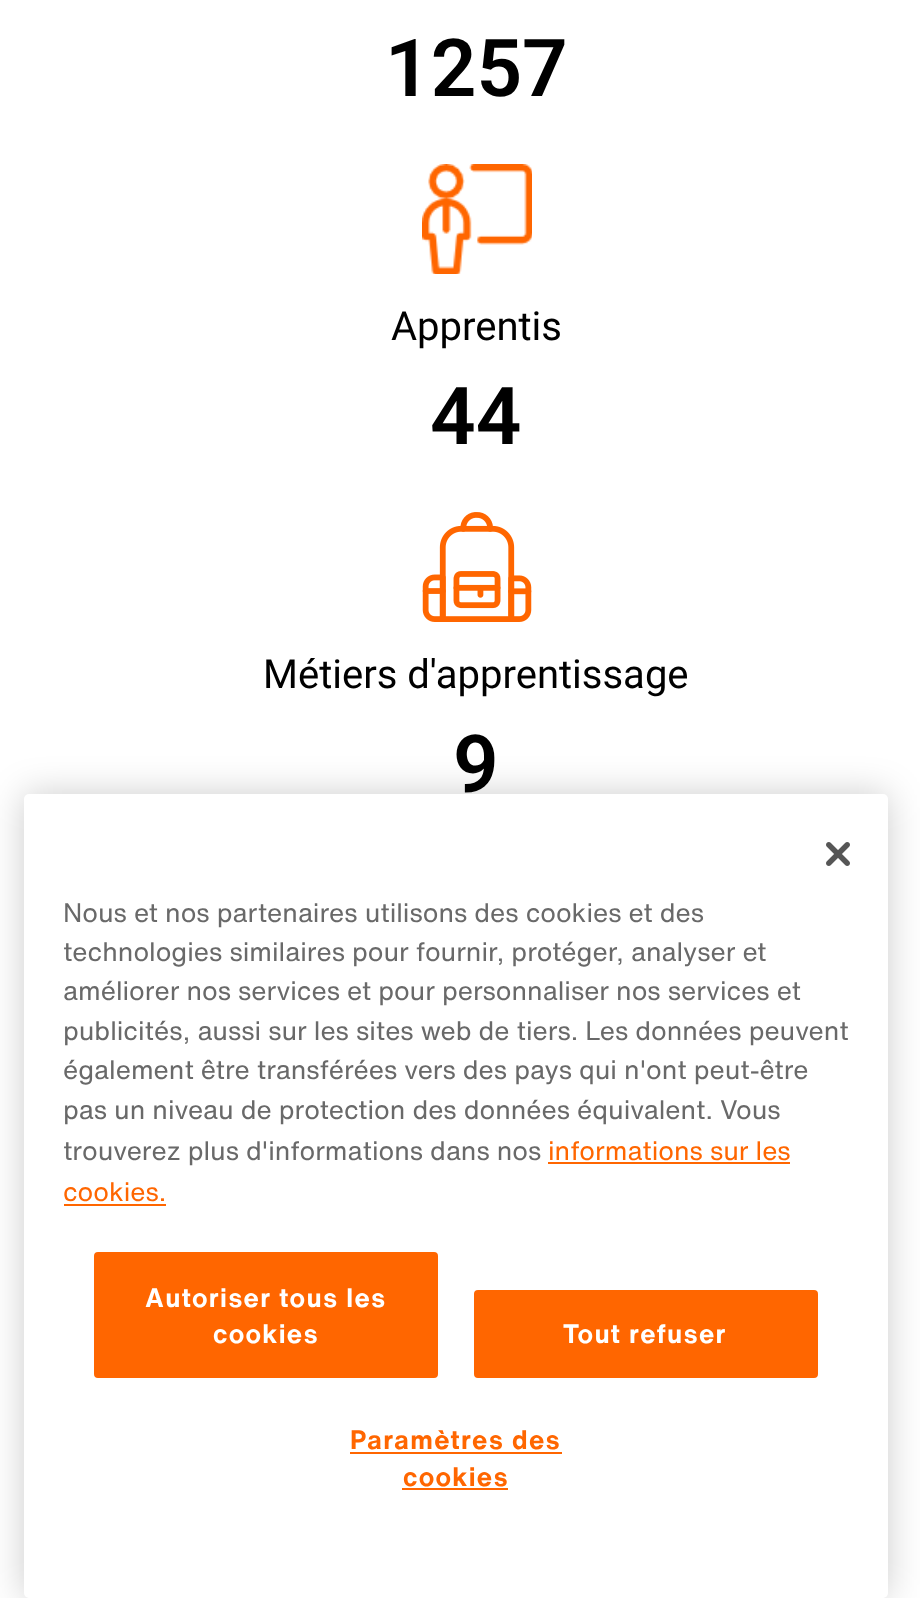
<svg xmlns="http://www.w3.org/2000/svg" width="920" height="1598">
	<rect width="100%" height="100%" fill="#FFFFFF" />
	<text x="385" y="96" font-family="Roboto" font-size="80" font-weight="600" fill="#000000">1257</text>
	<image x="422" y="164" width="110" height="110" href="assets/img1.png" />
	<text x="391" y="340" font-family="Roboto" font-size="40" fill="#000000">Apprentis</text>
	<text x="430" y="444" font-family="Roboto" font-size="80" font-weight="600" fill="#000000">44</text>
	<image x="422" y="512" width="110" height="110" href="assets/img2.png" />
	<text x="263" y="688" font-family="Roboto" font-size="40" fill="#000000">Métiers d'apprentissage</text>
	<text x="453" y="792" font-family="Roboto" font-size="80" font-weight="600" fill="#000000">9</text>
	<rect x="24" y="794" width="864" height="804" rx="5" fill="#000000" fill-opacity="0.2" filter="blur(18px)" />
	<rect x="24" y="794" width="864" height="804" rx="5" fill="#FFFFFF" />
	<image x="826" y="842" width="24" height="24" href="assets/img3.png" />
	<g font-family="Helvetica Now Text" font-size="26.25" fill="#696969">
		<text x="63" y="922">Nous et nos partenaires utilisons des cookies et des</text>
		<text x="63" y="961">technologies similaires pour fournir, protéger, analyser et</text>
		<text x="63" y="1000">améliorer nos services et pour personnaliser nos services et</text>
		<text x="63" y="1040">publicités, aussi sur les sites web de tiers. Les données peuvent</text>
		<text x="63" y="1079">également être transférées vers des pays qui n'ont peut-être</text>
		<text x="63" y="1119">pas un niveau de protection des données équivalent. Vous</text>
		<text x="63" y="1160">trouverez plus d'informations dans nos</text>
	</g>
	<text x="548" y="1160" font-family="Helvetica Now Text" font-size="26.25" fill="#FF6600">informations sur les</text>
	<rect x="548" y="1162" width="242" height="2" fill="#FF6600" />
	<text x="63" y="1201" font-family="Helvetica Now Text" font-size="26.25" fill="#FF6600">cookies.</text>
	<rect x="64" y="1204" width="102" height="2" fill="#FF6600" />
	<rect x="95" y="1253" width="342" height="124" rx="3" fill="#FF6600" stroke="#FF6600" stroke-width="2" />
	<g font-family="Helvetica Now Text" font-size="26.25" font-weight="700" letter-spacing="1.3" fill="#FFFFFF">
		<text x="145" y="1307">Autoriser tous les</text>
		<text x="213" y="1343">cookies</text>
	</g>
	<rect x="475" y="1291" width="342" height="86" rx="3" fill="#FF6600" stroke="#FF6600" stroke-width="2" />
	<text x="563" y="1343" font-family="Helvetica Now Text" font-size="26.25" font-weight="700" letter-spacing="1.3" fill="#FFFFFF">Tout refuser</text>
	<text x="350" y="1449" font-family="Helvetica Now Text" font-size="26.25" font-weight="700" letter-spacing="1.3" fill="#FF6600">Paramètres des</text>
	<rect x="350" y="1452" width="212" height="2" fill="#FF6600" />
	<text x="403" y="1486" font-family="Helvetica Now Text" font-size="26.25" font-weight="700" letter-spacing="1.3" fill="#FF6600">cookies</text>
	<rect x="402" y="1488" width="106" height="2" fill="#FF6600" />
</svg>
